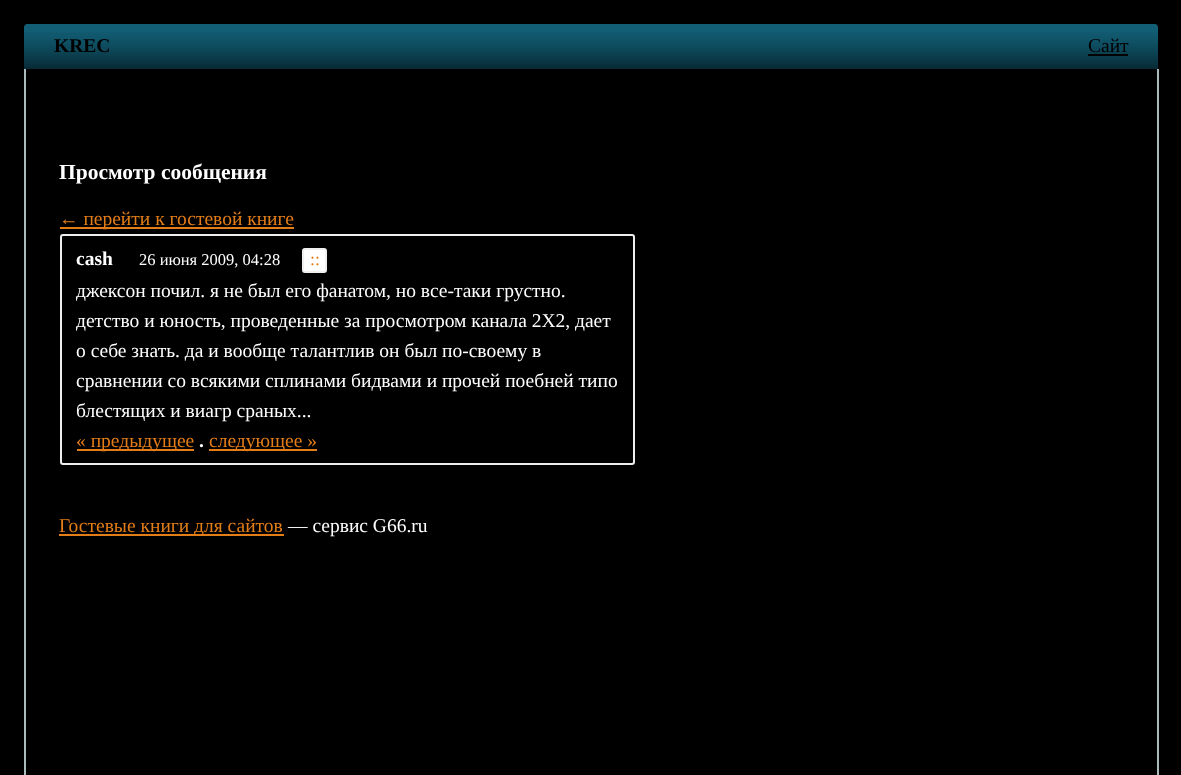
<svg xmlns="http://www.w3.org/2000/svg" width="1181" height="775">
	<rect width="100%" height="100%" fill="#000000" />
	<path d="M27 24H1155C1156.5 24 1158 25.5 1158 27V69H24V27C24 25.5 25.5 24 27 24Z" fill="#125E75" />
	<image x="24" y="32" width="1134" height="37" href="assets/img1.png" />
	<text x="54" y="52" font-family="Liberation Serif" font-size="19.5" font-weight="700" fill="#000000">KREC</text>
	<text x="1088" y="52" font-family="Liberation Serif" font-size="19.5" fill="#000000">Сайт</text>
	<rect x="1088" y="54" width="40" height="2" fill="#000000" />
	<rect x="1157" y="69" width="2" height="706" fill="#A9BBBC" />
	<rect x="24" y="69" width="2" height="706" fill="#A9BBBC" />
	<text x="59" y="179" font-family="Liberation Serif" font-size="21.5" font-weight="700" fill="#FFFFFF">Просмотр сообщения</text>
	<rect x="60" y="227" width="234" height="2" fill="#E27D18" />
	<text x="59" y="225" font-family="Liberation Serif" font-size="19.5" fill="#E27D18">← перейти к гостевой книге</text>
	<rect x="61" y="235" width="573" height="229" rx="2" fill="none" stroke="#EEEEEE" stroke-width="2" />
	<text x="76" y="265" font-family="Liberation Serif" font-size="19.5" font-weight="700" fill="#FFFFFF">cash</text>
	<text x="139" y="265" font-family="Liberation Serif" font-size="16.5" fill="#FFFFFF">26 июня 2009, 04:28</text>
	<rect x="303" y="249" width="23" height="23" rx="2" fill="#FFFFFF" stroke="#F0F0F0" stroke-width="2" />
	<text x="310" y="265" font-family="Liberation Serif" font-size="18" fill="#E27D18">::</text>
	<g font-family="Liberation Serif" font-size="19.5" fill="#FFFFFF">
		<text x="76" y="297">джексон почил. я не был его фанатом, но все-таки грустно.</text>
		<text x="76" y="327">детство и юность, проведенные за просмотром канала 2Х2, дает</text>
		<text x="76" y="357">о себе знать. да и вообще талантлив он был по-своему в</text>
		<text x="76" y="387">сравнении со всякими сплинами бидвами и прочей поебней типо</text>
		<text x="76" y="417">блестящих и виагр сраных...</text>
	</g>
	<rect x="77" y="449" width="117" height="2" fill="#E27D18" />
	<text x="76" y="447" font-family="Liberation Serif" font-size="19.5" fill="#E27D18">« предыдущее</text>
	<text x="199" y="447" font-family="Liberation Serif" font-size="19.5" font-weight="700" fill="#FFFFFF">.</text>
	<rect x="209" y="449" width="108" height="2" fill="#E27D18" />
	<text x="209" y="447" font-family="Liberation Serif" font-size="19.5" fill="#E27D18">следующее »</text>
	<rect x="59" y="534" width="225" height="2" fill="#E27D18" />
	<text x="59" y="532" font-family="Liberation Serif" font-size="19.5" fill="#E27D18">Гостевые книги для сайтов</text>
	<text x="288" y="532" font-family="Liberation Serif" font-size="19.5" fill="#FFFFFF">— сервис G66.ru</text>
</svg>
